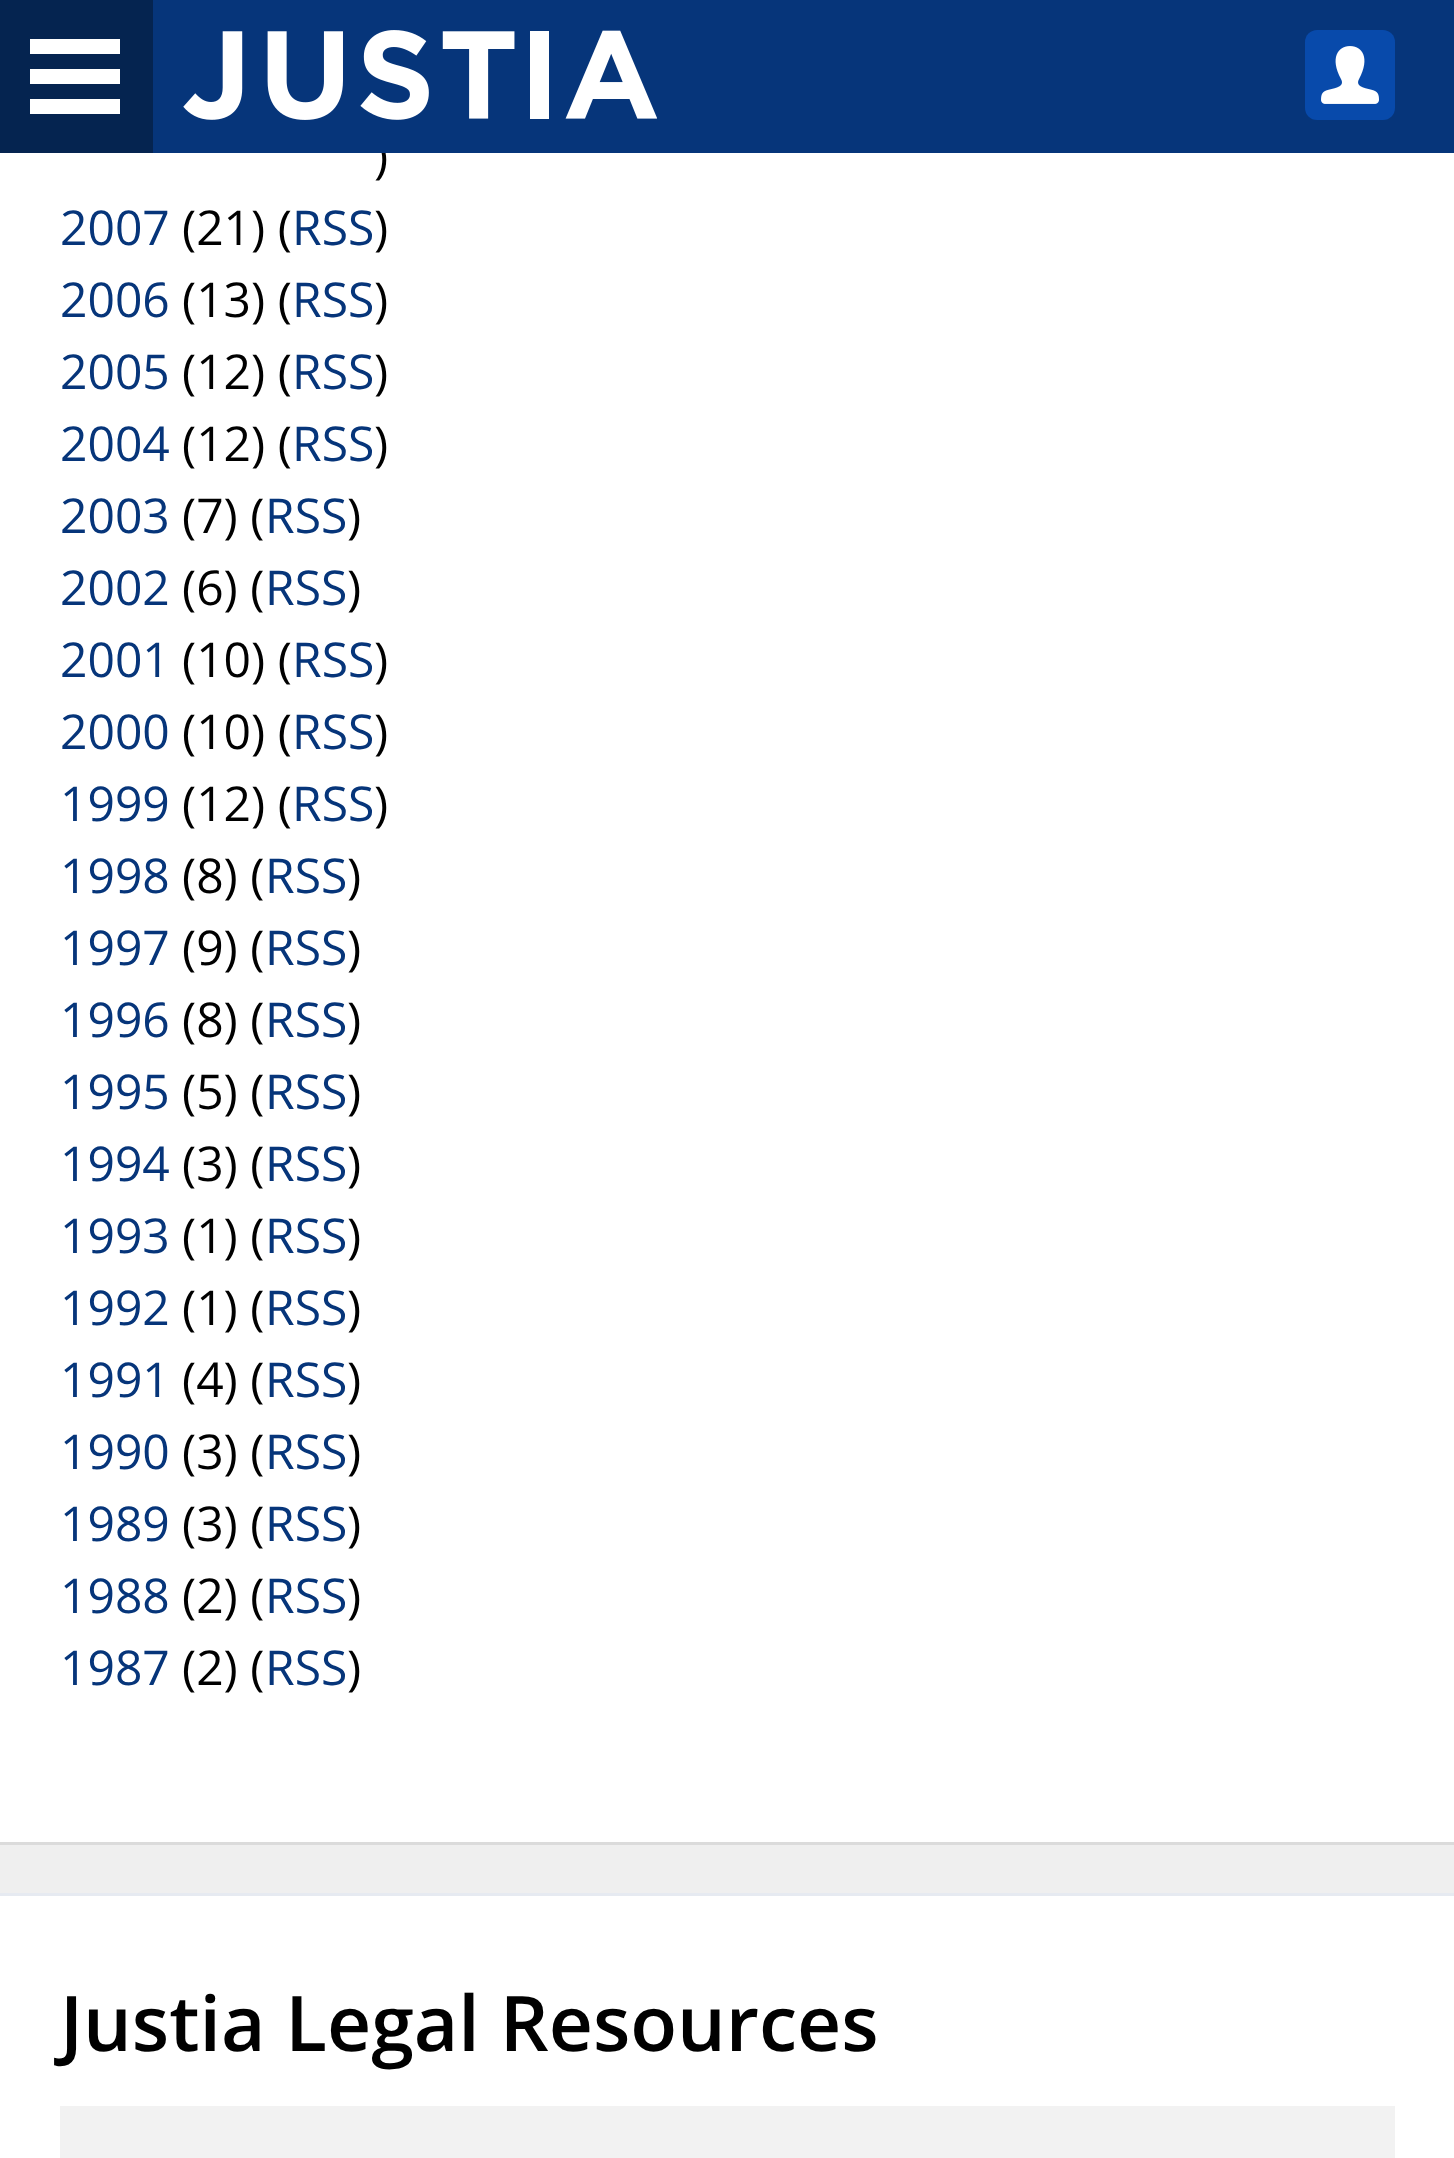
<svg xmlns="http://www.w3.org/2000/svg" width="1454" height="2158">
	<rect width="100%" height="100%" fill="#EFEFEF" />
	<rect x="0" y="153" width="1454" height="1689" fill="#FFFFFF" />
	<text x="374" y="173" font-family="Open Sans" font-size="48" fill="#000000">)</text>
	<rect x="153" y="0" width="1301" height="153" fill="#06357A" />
	<rect x="0" y="0" width="153" height="153" fill="#052450" />
	<rect x="30" y="39" width="90" height="15" fill="#FFFFFF" />
	<rect x="30" y="69" width="90" height="15" fill="#FFFFFF" />
	<rect x="30" y="99" width="90" height="15" fill="#FFFFFF" />
	<image x="183" y="30" width="474" height="90" href="assets/img1.png" />
	<rect x="1305" y="30" width="90" height="90" rx="12" fill="#084AAB" />
	<image x="1321" y="46" width="58" height="58" href="assets/img2.png" />
	<rect x="0" y="1842" width="1454" height="3" fill="#DBDBDB" />
	<text x="60" y="245" font-family="Open Sans" font-size="48" fill="#06357A">2007</text>
	<text x="182" y="245" font-family="Open Sans" font-size="48" fill="#000000">(21) (</text>
	<text x="292" y="245" font-family="Open Sans" font-size="48" fill="#06357A">RSS</text>
	<text x="374" y="245" font-family="Open Sans" font-size="48" fill="#000000">)</text>
	<text x="60" y="317" font-family="Open Sans" font-size="48" fill="#06357A">2006</text>
	<text x="182" y="317" font-family="Open Sans" font-size="48" fill="#000000">(13) (</text>
	<text x="292" y="317" font-family="Open Sans" font-size="48" fill="#06357A">RSS</text>
	<text x="374" y="317" font-family="Open Sans" font-size="48" fill="#000000">)</text>
	<text x="60" y="389" font-family="Open Sans" font-size="48" fill="#06357A">2005</text>
	<text x="182" y="389" font-family="Open Sans" font-size="48" fill="#000000">(12) (</text>
	<text x="292" y="389" font-family="Open Sans" font-size="48" fill="#06357A">RSS</text>
	<text x="374" y="389" font-family="Open Sans" font-size="48" fill="#000000">)</text>
	<text x="60" y="461" font-family="Open Sans" font-size="48" fill="#06357A">2004</text>
	<text x="182" y="461" font-family="Open Sans" font-size="48" fill="#000000">(12) (</text>
	<text x="292" y="461" font-family="Open Sans" font-size="48" fill="#06357A">RSS</text>
	<text x="374" y="461" font-family="Open Sans" font-size="48" fill="#000000">)</text>
	<text x="60" y="533" font-family="Open Sans" font-size="48" fill="#06357A">2003</text>
	<text x="182" y="533" font-family="Open Sans" font-size="48" fill="#000000">(7) (</text>
	<text x="265" y="533" font-family="Open Sans" font-size="48" fill="#06357A">RSS</text>
	<text x="347" y="533" font-family="Open Sans" font-size="48" fill="#000000">)</text>
	<text x="60" y="605" font-family="Open Sans" font-size="48" fill="#06357A">2002</text>
	<text x="182" y="605" font-family="Open Sans" font-size="48" fill="#000000">(6) (</text>
	<text x="265" y="605" font-family="Open Sans" font-size="48" fill="#06357A">RSS</text>
	<text x="347" y="605" font-family="Open Sans" font-size="48" fill="#000000">)</text>
	<text x="60" y="677" font-family="Open Sans" font-size="48" fill="#06357A">2001</text>
	<text x="182" y="677" font-family="Open Sans" font-size="48" fill="#000000">(10) (</text>
	<text x="292" y="677" font-family="Open Sans" font-size="48" fill="#06357A">RSS</text>
	<text x="374" y="677" font-family="Open Sans" font-size="48" fill="#000000">)</text>
	<text x="60" y="749" font-family="Open Sans" font-size="48" fill="#06357A">2000</text>
	<text x="182" y="749" font-family="Open Sans" font-size="48" fill="#000000">(10) (</text>
	<text x="292" y="749" font-family="Open Sans" font-size="48" fill="#06357A">RSS</text>
	<text x="374" y="749" font-family="Open Sans" font-size="48" fill="#000000">)</text>
	<text x="60" y="821" font-family="Open Sans" font-size="48" fill="#06357A">1999</text>
	<text x="182" y="821" font-family="Open Sans" font-size="48" fill="#000000">(12) (</text>
	<text x="292" y="821" font-family="Open Sans" font-size="48" fill="#06357A">RSS</text>
	<text x="374" y="821" font-family="Open Sans" font-size="48" fill="#000000">)</text>
	<text x="60" y="893" font-family="Open Sans" font-size="48" fill="#06357A">1998</text>
	<text x="182" y="893" font-family="Open Sans" font-size="48" fill="#000000">(8) (</text>
	<text x="265" y="893" font-family="Open Sans" font-size="48" fill="#06357A">RSS</text>
	<text x="347" y="893" font-family="Open Sans" font-size="48" fill="#000000">)</text>
	<text x="60" y="965" font-family="Open Sans" font-size="48" fill="#06357A">1997</text>
	<text x="182" y="965" font-family="Open Sans" font-size="48" fill="#000000">(9) (</text>
	<text x="265" y="965" font-family="Open Sans" font-size="48" fill="#06357A">RSS</text>
	<text x="347" y="965" font-family="Open Sans" font-size="48" fill="#000000">)</text>
	<text x="60" y="1037" font-family="Open Sans" font-size="48" fill="#06357A">1996</text>
	<text x="182" y="1037" font-family="Open Sans" font-size="48" fill="#000000">(8) (</text>
	<text x="265" y="1037" font-family="Open Sans" font-size="48" fill="#06357A">RSS</text>
	<text x="347" y="1037" font-family="Open Sans" font-size="48" fill="#000000">)</text>
	<text x="60" y="1109" font-family="Open Sans" font-size="48" fill="#06357A">1995</text>
	<text x="182" y="1109" font-family="Open Sans" font-size="48" fill="#000000">(5) (</text>
	<text x="265" y="1109" font-family="Open Sans" font-size="48" fill="#06357A">RSS</text>
	<text x="347" y="1109" font-family="Open Sans" font-size="48" fill="#000000">)</text>
	<text x="60" y="1181" font-family="Open Sans" font-size="48" fill="#06357A">1994</text>
	<text x="182" y="1181" font-family="Open Sans" font-size="48" fill="#000000">(3) (</text>
	<text x="265" y="1181" font-family="Open Sans" font-size="48" fill="#06357A">RSS</text>
	<text x="347" y="1181" font-family="Open Sans" font-size="48" fill="#000000">)</text>
	<text x="60" y="1253" font-family="Open Sans" font-size="48" fill="#06357A">1993</text>
	<text x="182" y="1253" font-family="Open Sans" font-size="48" fill="#000000">(1) (</text>
	<text x="265" y="1253" font-family="Open Sans" font-size="48" fill="#06357A">RSS</text>
	<text x="347" y="1253" font-family="Open Sans" font-size="48" fill="#000000">)</text>
	<text x="60" y="1325" font-family="Open Sans" font-size="48" fill="#06357A">1992</text>
	<text x="182" y="1325" font-family="Open Sans" font-size="48" fill="#000000">(1) (</text>
	<text x="265" y="1325" font-family="Open Sans" font-size="48" fill="#06357A">RSS</text>
	<text x="347" y="1325" font-family="Open Sans" font-size="48" fill="#000000">)</text>
	<text x="60" y="1397" font-family="Open Sans" font-size="48" fill="#06357A">1991</text>
	<text x="182" y="1397" font-family="Open Sans" font-size="48" fill="#000000">(4) (</text>
	<text x="265" y="1397" font-family="Open Sans" font-size="48" fill="#06357A">RSS</text>
	<text x="347" y="1397" font-family="Open Sans" font-size="48" fill="#000000">)</text>
	<text x="60" y="1469" font-family="Open Sans" font-size="48" fill="#06357A">1990</text>
	<text x="182" y="1469" font-family="Open Sans" font-size="48" fill="#000000">(3) (</text>
	<text x="265" y="1469" font-family="Open Sans" font-size="48" fill="#06357A">RSS</text>
	<text x="347" y="1469" font-family="Open Sans" font-size="48" fill="#000000">)</text>
	<text x="60" y="1541" font-family="Open Sans" font-size="48" fill="#06357A">1989</text>
	<text x="182" y="1541" font-family="Open Sans" font-size="48" fill="#000000">(3) (</text>
	<text x="265" y="1541" font-family="Open Sans" font-size="48" fill="#06357A">RSS</text>
	<text x="347" y="1541" font-family="Open Sans" font-size="48" fill="#000000">)</text>
	<text x="60" y="1613" font-family="Open Sans" font-size="48" fill="#06357A">1988</text>
	<text x="182" y="1613" font-family="Open Sans" font-size="48" fill="#000000">(2) (</text>
	<text x="265" y="1613" font-family="Open Sans" font-size="48" fill="#06357A">RSS</text>
	<text x="347" y="1613" font-family="Open Sans" font-size="48" fill="#000000">)</text>
	<text x="60" y="1685" font-family="Open Sans" font-size="48" fill="#06357A">1987</text>
	<text x="182" y="1685" font-family="Open Sans" font-size="48" fill="#000000">(2) (</text>
	<text x="265" y="1685" font-family="Open Sans" font-size="48" fill="#06357A">RSS</text>
	<text x="347" y="1685" font-family="Open Sans" font-size="48" fill="#000000">)</text>
	<rect x="0" y="1896" width="1454" height="262" fill="#FFFFFF" />
	<rect x="0" y="1893" width="1454" height="3" fill="#E6EAF1" />
	<text x="60" y="2051" font-family="Open Sans" font-size="76.75" font-weight="600" fill="#000000">Justia Legal Resources</text>
	<rect x="60" y="2106" width="1335" height="52" fill="#F2F2F2" />
</svg>
